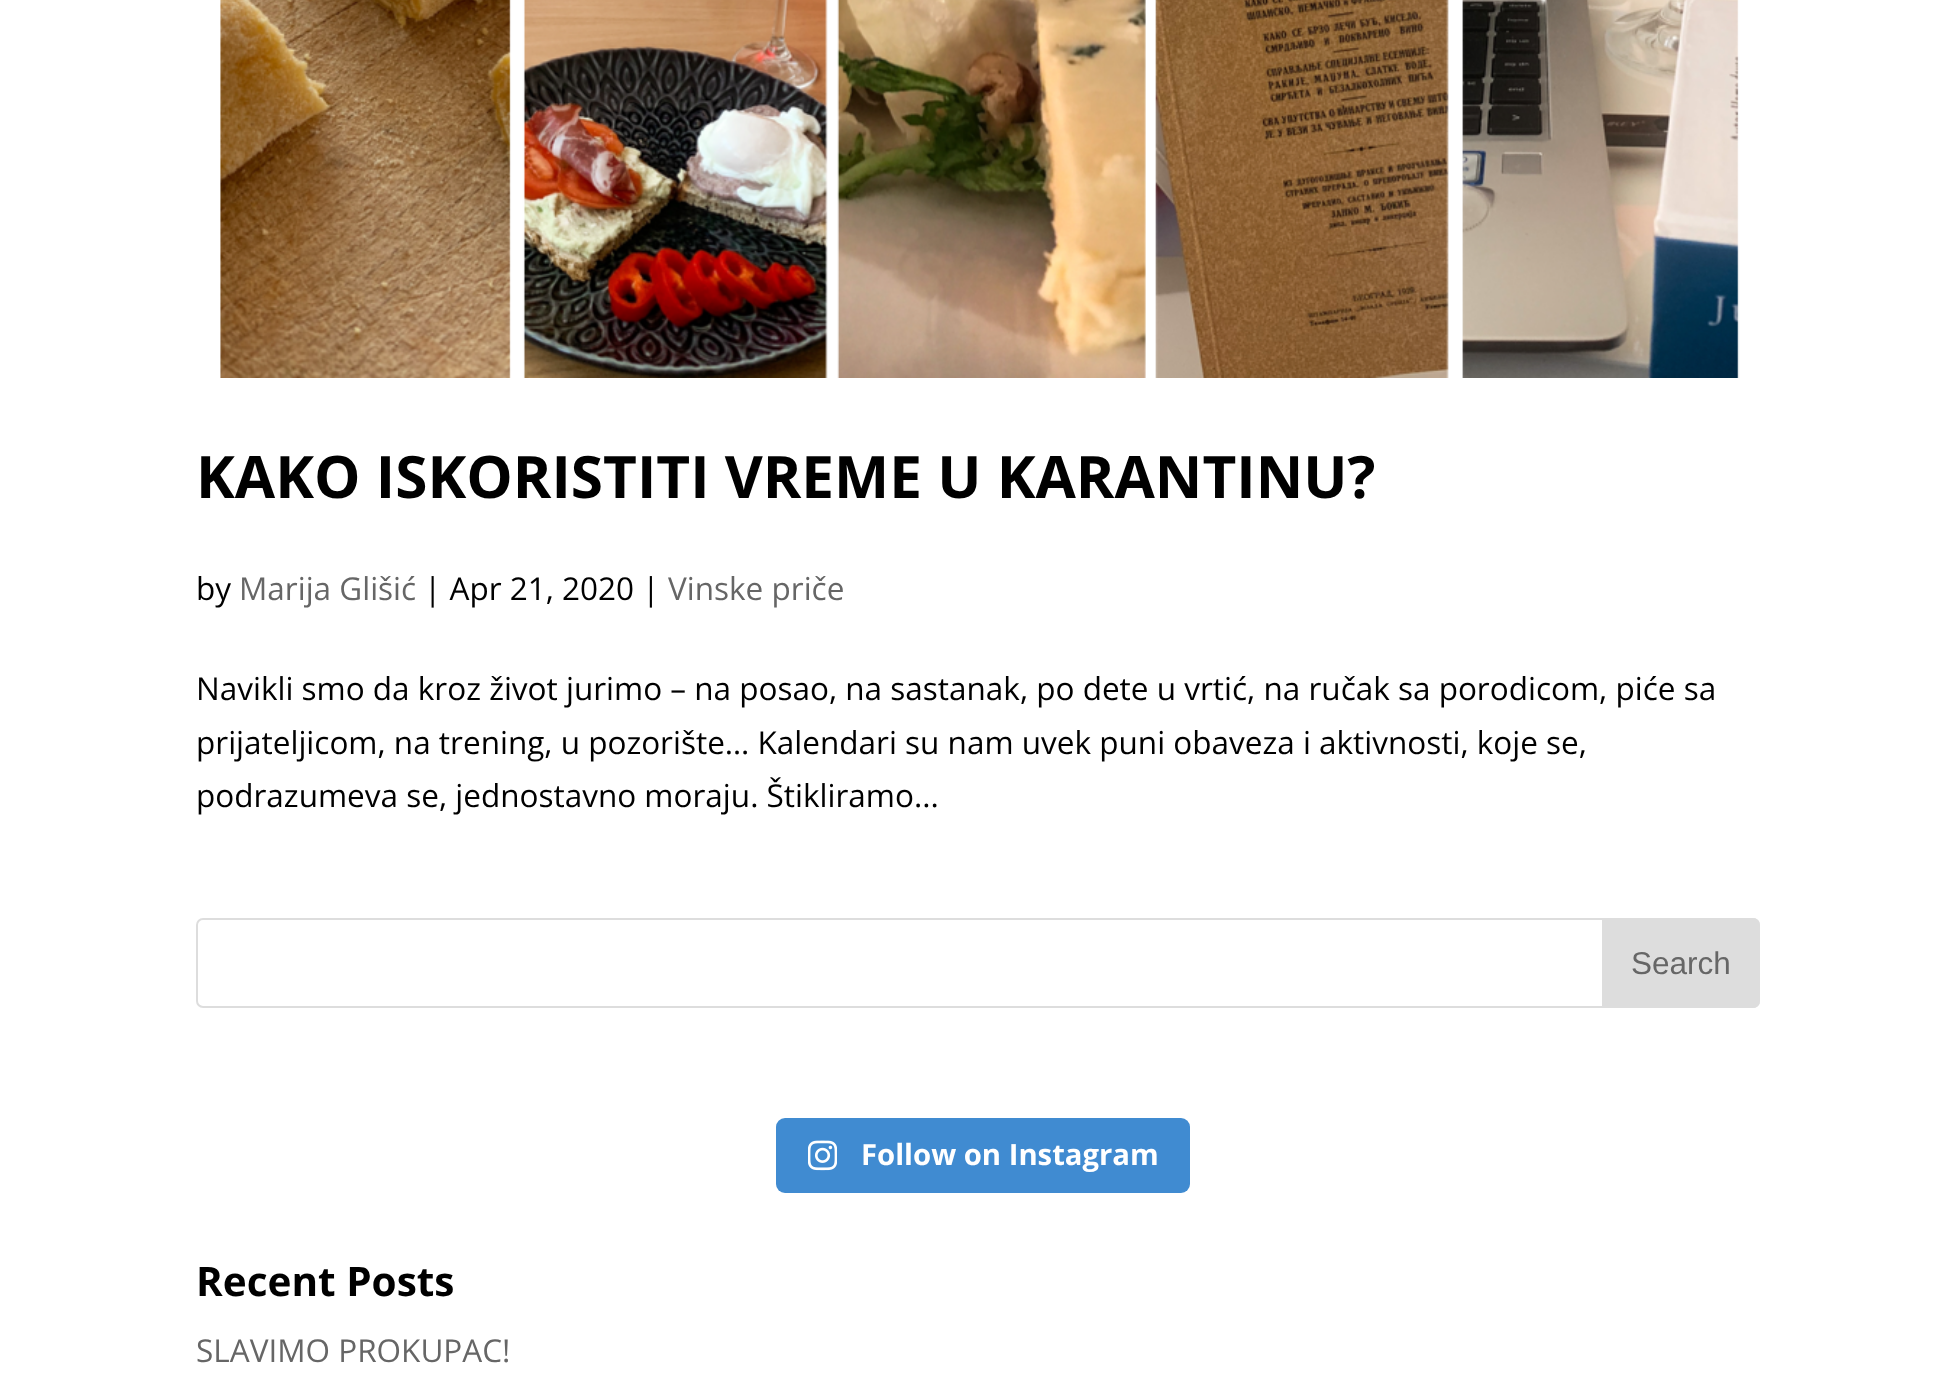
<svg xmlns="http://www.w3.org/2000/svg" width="1955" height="1382">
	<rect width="100%" height="100%" fill="#FFFFFF" />
	<image x="220" y="0" width="1520" height="378" href="assets/img1.png" />
	<text x="196" y="498" font-family="Open Sans" font-size="58.5" font-weight="700" fill="#000000">KAKO ISKORISTITI VREME U KARANTINU?</text>
	<text x="196" y="600" font-family="Open Sans" font-size="31.5" fill="#000000">by</text>
	<text x="239" y="600" font-family="Open Sans" font-size="31.5" fill="#666666">Marija Glišić</text>
	<text x="424" y="600" font-family="Open Sans" font-size="31.5" fill="#000000">| Apr 21, 2020 |</text>
	<text x="668" y="600" font-family="Open Sans" font-size="31.5" fill="#666666">Vinske priče</text>
	<g font-family="Open Sans" font-size="31.5" fill="#000000">
		<text x="196" y="700">Navikli smo da kroz život jurimo – na posao, na sastanak, po dete u vrtić, na ručak sa porodicom, piće sa</text>
		<text x="196" y="754">prijateljicom, na trening, u pozorište… Kalendari su nam uvek puni obaveza i aktivnosti, koje se,</text>
		<text x="196" y="807">podrazumeva se, jednostavno moraju. Štikliramo...</text>
	</g>
	<rect x="197" y="919" width="1562" height="88" rx="6" fill="none" stroke="#DDDDDD" stroke-width="2" />
	<path d="M1603 919H1753C1756.5 919 1759 921.5 1759 925V1001C1759 1004.5 1756.5 1007 1753 1007H1603Z" fill="#DDDDDD" stroke="#DDDDDD" stroke-width="2" />
	<text x="1631" y="974" font-family="Liberation Sans" font-size="31.5" fill="#666666">Search</text>
	<rect x="776" y="1118" width="414" height="75" rx="9" fill="#408BD1" />
	<image x="808" y="1140" width="29" height="31" href="assets/img2.png" />
	<text x="861" y="1165" font-family="Open Sans" font-size="29.25" font-weight="700" fill="#FFFFFF">Follow on Instagram</text>
	<text x="196" y="1296" font-family="Open Sans" font-size="40.5" font-weight="700" fill="#000000">Recent Posts</text>
	<text x="196" y="1362" font-family="Open Sans" font-size="31.5" fill="#666666">SLAVIMO PROKUPAC!</text>
</svg>
